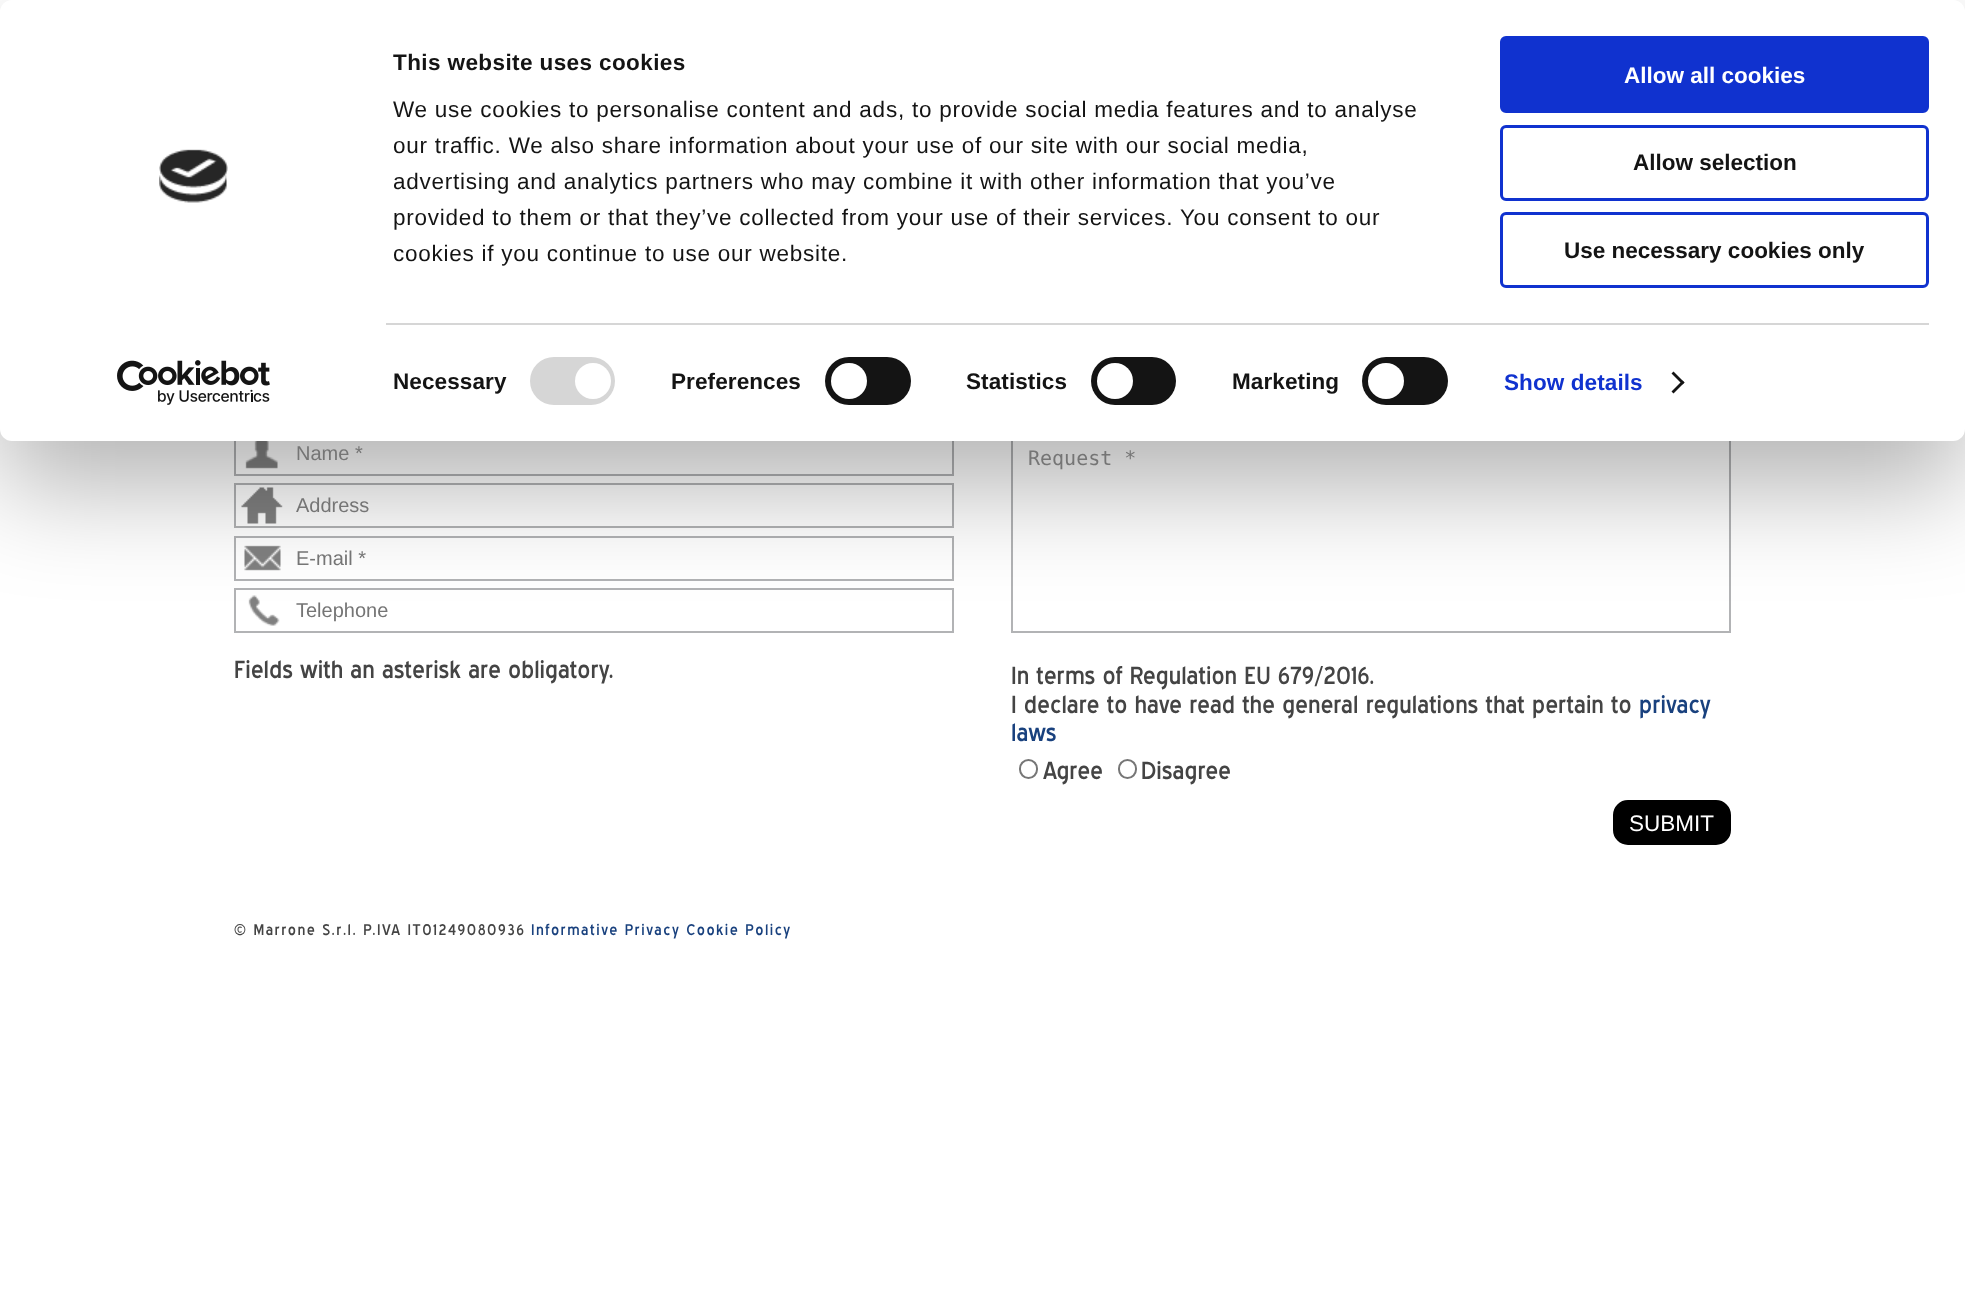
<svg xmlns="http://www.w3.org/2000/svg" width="1965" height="1306">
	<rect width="100%" height="100%" fill="#FFFFFF" />
	<image x="245" y="441" width="33" height="28" href="assets/img3.png" />
	<rect x="235" y="432" width="718" height="43" fill="none" stroke="#B2B3B5" stroke-width="2" />
	<image x="241" y="487" width="42" height="37" href="assets/img4.png" />
	<rect x="235" y="484" width="718" height="43" fill="none" stroke="#B2B3B5" stroke-width="2" />
	<image x="244" y="545" width="37" height="26" href="assets/img5.png" />
	<rect x="235" y="537" width="718" height="43" fill="none" stroke="#B2B3B5" stroke-width="2" />
	<image x="248" y="595" width="32" height="31" href="assets/img6.png" />
	<rect x="235" y="589" width="718" height="43" fill="none" stroke="#B2B3B5" stroke-width="2" />
	<rect x="1012" y="432" width="718" height="200" fill="none" stroke="#B2B3B5" stroke-width="2" />
	<rect x="0" y="45" width="1965" height="441" rx="12" fill="#000000" fill-opacity="0.3" filter="blur(52.5px)" />
	<rect x="0" y="0" width="1965" height="441" rx="12" fill="#FFFFFF" />
	<image x="159" y="149" width="69" height="54" href="assets/img1.png" />
	<image x="117" y="360" width="153" height="45" href="assets/img2.png" />
	<text x="393" y="70" font-family="Liberation Sans" font-size="22.5" font-weight="700" letter-spacing="0.4" fill="#141414">This website uses cookies</text>
	<g font-family="Liberation Sans" font-size="22.5" letter-spacing="0.75" fill="#141414">
		<text x="393" y="117">We use cookies to personalise content and ads, to provide social media features and to analyse</text>
		<text x="393" y="153">our traffic. We also share information about your use of our site with our social media,</text>
		<text x="393" y="189">advertising and analytics partners who may combine it with other information that you’ve</text>
		<text x="393" y="225">provided to them or that they’ve collected from your use of their services. You consent to our</text>
		<text x="393" y="261">cookies if you continue to use our website.</text>
	</g>
	<rect x="386" y="323" width="1543" height="2" fill="#D6D6D6" />
	<text x="393" y="389" font-family="Liberation Sans" font-size="22.5" font-weight="700" letter-spacing="0.1" fill="#141414">Necessary</text>
	<rect x="530" y="357" width="85" height="48" rx="24" fill="#D6D6D6" />
	<circle cx="593" cy="381" r="18" fill="#FFFFFF" />
	<text x="671" y="389" font-family="Liberation Sans" font-size="22.5" font-weight="700" letter-spacing="0.1" fill="#141414">Preferences</text>
	<rect x="825" y="357" width="86" height="48" rx="24" fill="#141414" />
	<circle cx="849" cy="381" r="18" fill="#FFFFFF" />
	<text x="966" y="389" font-family="Liberation Sans" font-size="22.5" font-weight="700" letter-spacing="0.1" fill="#141414">Statistics</text>
	<rect x="1091" y="357" width="85" height="48" rx="24" fill="#141414" />
	<circle cx="1115" cy="381" r="18" fill="#FFFFFF" />
	<text x="1232" y="389" font-family="Liberation Sans" font-size="22.5" font-weight="700" letter-spacing="0.1" fill="#141414">Marketing</text>
	<rect x="1362" y="357" width="86" height="48" rx="24" fill="#141414" />
	<circle cx="1386" cy="381" r="18" fill="#FFFFFF" />
	<text x="1504" y="390" font-family="Liberation Sans" font-size="22.5" font-weight="700" letter-spacing="0.1" fill="#1032CF">Show details</text>
	<path d="M1673.5 371.5L1684.5 382.5L1682.5 384.5L1671.5 373.5Z" fill="#141414" />
	<path d="M1682.5 380.5L1684.5 382.5L1673.5 393.5L1671.5 391.5Z" fill="#141414" />
	<rect x="1501.5" y="37.5" width="426" height="74" rx="4.5" fill="#1032CF" stroke="#1032CF" stroke-width="3" />
	<text x="1624" y="83" font-family="Liberation Sans" font-size="22.5" font-weight="700" fill="#FFFFFF">Allow all cookies</text>
	<rect x="1501.5" y="126.5" width="426" height="73" rx="4.5" fill="none" stroke="#1032CF" stroke-width="3" />
	<text x="1633" y="170" font-family="Liberation Sans" font-size="22.5" font-weight="700" fill="#141414">Allow selection</text>
	<rect x="1501.5" y="213.5" width="426" height="73" rx="4.5" fill="none" stroke="#1032CF" stroke-width="3" />
	<text x="1564" y="258" font-family="Liberation Sans" font-size="22.5" font-weight="700" fill="#141414">Use necessary cookies only</text>
	<g font-family="Liberation Sans" font-size="20" fill="#757575">
		<text x="296" y="460">Name *</text>
		<text x="296" y="512">Address</text>
		<text x="296" y="565">E-mail *</text>
		<text x="296" y="617">Telephone</text>
	</g>
	<text x="1028" y="465" font-family="DejaVu Sans Mono" font-size="20" fill="#757575">Request *</text>
	<g font-family="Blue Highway" font-size="24" fill="#444444">
		<text x="234" y="678">Fields with an asterisk are obligatory.</text>
		<text x="1011" y="684">In terms of Regulation EU 679/2016.</text>
		<text x="1011" y="713">I declare to have read the general regulations that pertain to</text>
	</g>
	<g font-family="Blue Highway" font-size="24" fill="#19417E">
		<text x="1639" y="713">privacy</text>
		<text x="1011" y="741">laws</text>
	</g>
	<rect x="1020" y="760" width="17" height="18" rx="8.5" fill="none" stroke="#767676" stroke-width="2" />
	<text x="1043" y="779" font-family="Blue Highway" font-size="24" fill="#444444">Agree</text>
	<rect x="1119" y="760" width="17" height="18" rx="8.5" fill="none" stroke="#767676" stroke-width="2" />
	<text x="1141" y="779" font-family="Blue Highway" font-size="24" fill="#444444">Disagree</text>
	<rect x="1614" y="801" width="116" height="43" rx="14" fill="#000000" stroke="#000000" stroke-width="2" />
	<text x="1629" y="831" font-family="Liberation Sans" font-size="22.5" fill="#FFFFFF">SUBMIT</text>
	<text x="234" y="935" font-family="Blue Highway" font-size="15" letter-spacing="1.5" fill="#444444">© Marrone S.r.l. P.IVA IT01249080936</text>
	<text x="531" y="935" font-family="Blue Highway" font-size="15" letter-spacing="1.5" fill="#19417E">Informative Privacy Cookie Policy</text>
</svg>
